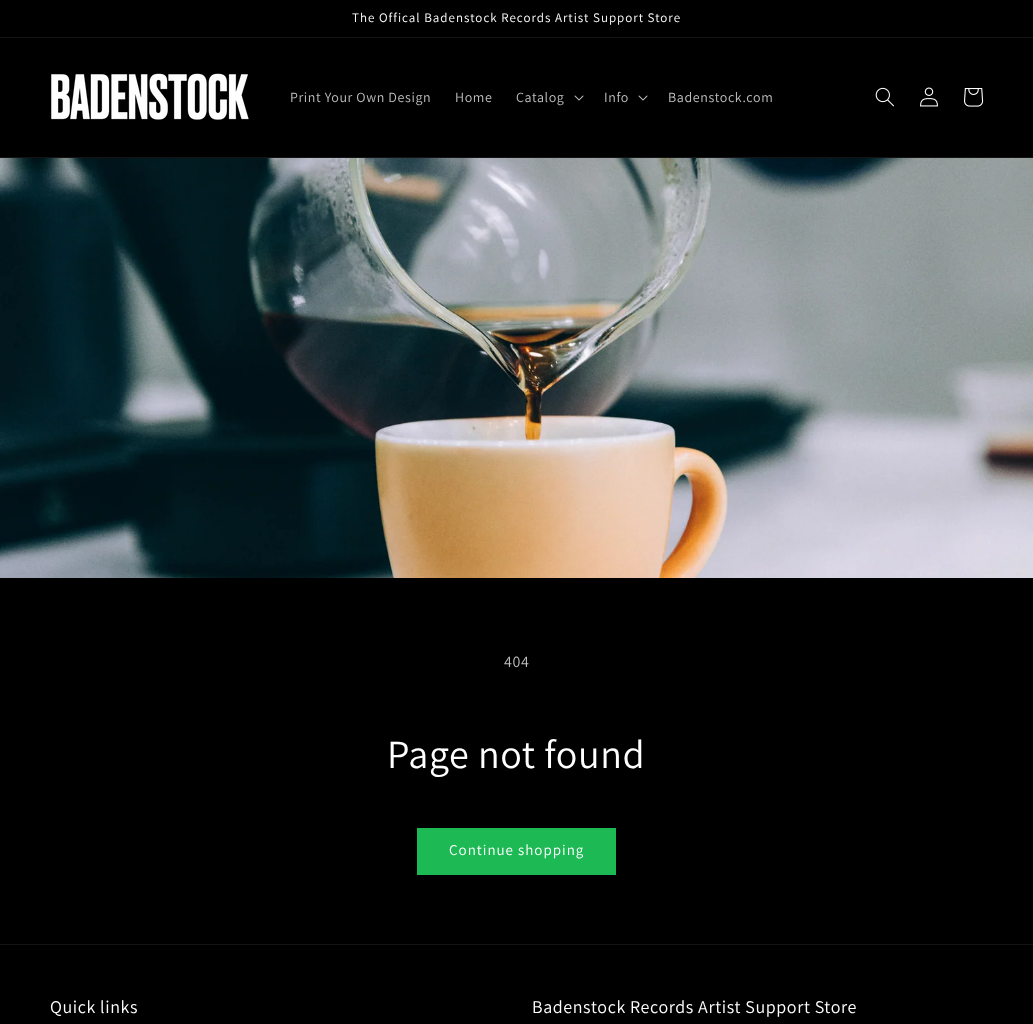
<svg xmlns="http://www.w3.org/2000/svg" width="1033" height="1024">
	<rect width="100%" height="100%" fill="#000000" />
	<rect x="0" y="37" width="1033" height="1" fill="#141414" />
	<text x="352" y="22" font-family="Assistant" font-size="13" letter-spacing="1" fill="#FFFFFF">The Offical Badenstock Records Artist Support Store</text>
	<rect x="0" y="157" width="1033" height="1" fill="#141414" />
	<image x="51" y="73" width="198" height="47" href="assets/img1.png" />
	<g font-family="Assistant" font-size="14" letter-spacing="0.6" fill="#BFBFBF">
		<text x="290" y="102">Print Your Own Design</text>
		<text x="455" y="102">Home</text>
		<text x="516" y="102">Catalog</text>
	</g>
	<image x="574" y="95" width="10" height="6" href="assets/img2.png" />
	<text x="604" y="102" font-family="Assistant" font-size="14" letter-spacing="0.6" fill="#BFBFBF">Info</text>
	<image x="638" y="95" width="10" height="6" href="assets/img2.png" />
	<text x="668" y="102" font-family="Assistant" font-size="14" letter-spacing="0.6" fill="#BFBFBF">Badenstock.com</text>
	<image x="875" y="87" width="19" height="20" href="assets/img3.png" />
	<image x="920" y="87" width="18" height="20" href="assets/img4.png" />
	<image x="964" y="88" width="20" height="19" href="assets/img5.png" />
	<image x="0" y="158" width="1033" height="420" href="assets/img6.png" />
	<text x="504" y="667" font-family="Assistant" font-size="16" letter-spacing="0.6" fill="#BFBFBF">404</text>
	<text x="387" y="768" font-family="Assistant" font-size="40" letter-spacing="0.6" fill="#FFFFFF">Page not found</text>
	<rect x="417.5" y="828.5" width="198" height="46" fill="none" stroke="#1DB954" />
	<rect x="418" y="829" width="197" height="45" fill="#1DB954" />
	<text x="449" y="855" font-family="Assistant" font-size="15" letter-spacing="1" fill="#FFFFFF">Continue shopping</text>
	<rect x="0" y="944" width="1033" height="1" fill="#141414" />
	<g font-family="Assistant" font-size="18" letter-spacing="0.6" fill="#FFFFFF">
		<text x="50" y="1013">Quick links</text>
		<text x="532" y="1013">Badenstock Records Artist Support Store</text>
	</g>
</svg>
